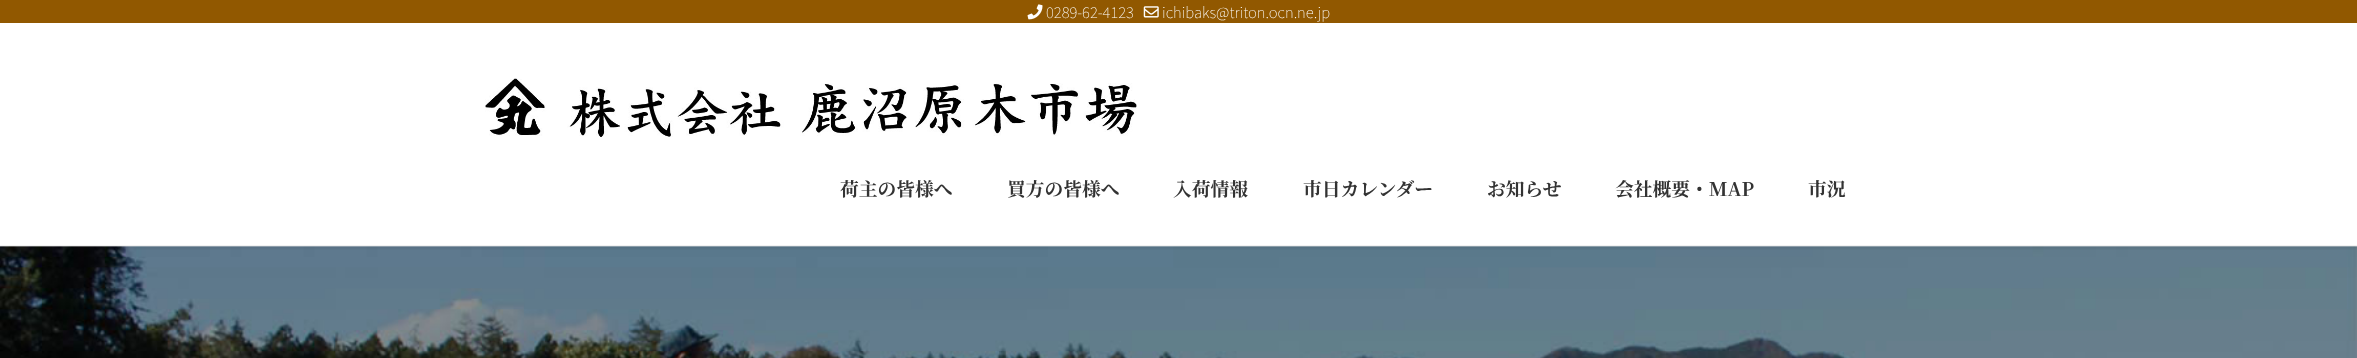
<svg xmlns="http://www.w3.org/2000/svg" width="2357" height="358">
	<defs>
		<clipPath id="clip1"><rect x="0" y="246" width="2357" height="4" /></clipPath>
	</defs>
	<rect width="100%" height="100%" fill="#FFFFFF" />
	<rect x="0" y="0" width="2357" height="23" fill="#915800" />
	<image x="1027" y="4" width="16" height="16" href="assets/img1.png" />
	<text x="1046" y="18" font-family="Noto Sans JP" font-size="15" font-weight="100" fill="#FFFFFF">0289-62-4123</text>
	<image x="1143" y="6" width="16" height="12" href="assets/img2.png" />
	<text x="1162" y="18" font-family="Noto Sans JP" font-size="15" font-weight="100" fill="#FFFFFF">ichibaks@triton.ocn.ne.jp</text>
	<image x="0" y="246" width="2357" height="112" href="assets/img4.png" />
	<g clip-path="url(#clip1)">
		<rect x="0" y="54" width="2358" height="194" fill="#000000" fill-opacity="0.1" filter="blur(2px)" />
	</g>
	<rect x="0" y="245" width="2357" height="1" fill="#F2F2F2" />
	<image x="485" y="78" width="652" height="59" href="assets/img3.png" />
	<g font-family="Noto Serif JP" font-size="18.75" font-weight="700" fill="#333333">
		<text x="840" y="196">荷主の皆様へ</text>
		<text x="1007" y="196">買方の皆様へ</text>
		<text x="1173" y="196">入荷情報</text>
		<text x="1303" y="196">市日カレンダー</text>
		<text x="1487" y="196">お知らせ</text>
		<text x="1615" y="196">会社概要・MAP</text>
		<text x="1808" y="196">市況</text>
	</g>
</svg>
